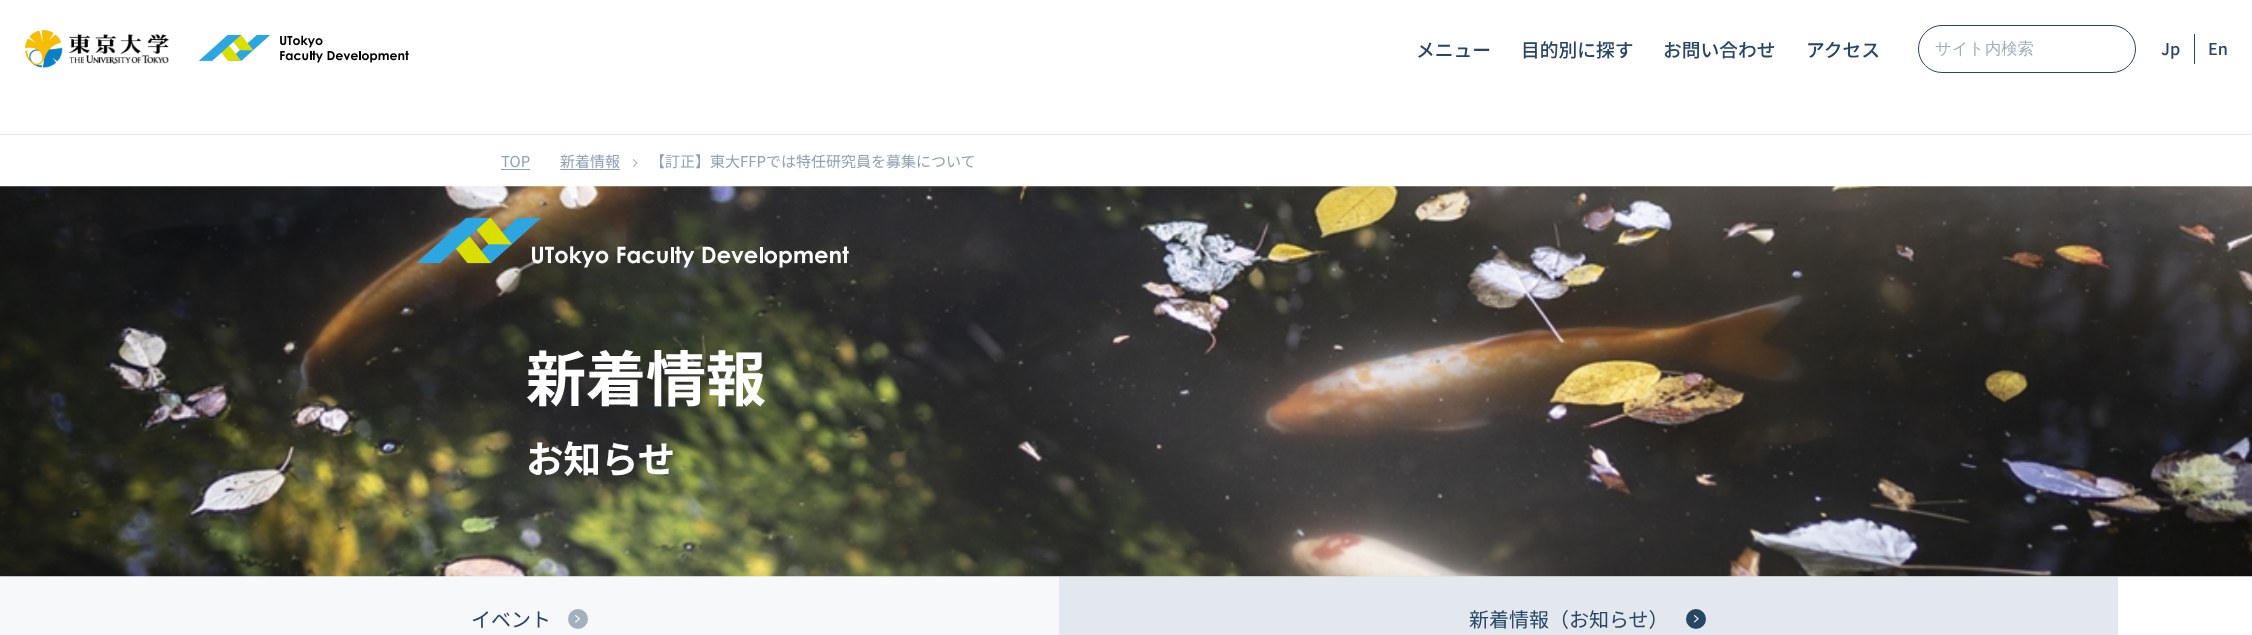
<svg xmlns="http://www.w3.org/2000/svg" width="2252" height="635">
	<rect width="100%" height="100%" fill="#FFFFFF" />
	<image x="25" y="30" width="144" height="38" href="assets/img1.png" />
	<image x="199" y="35" width="210" height="28" href="assets/img2.png" />
	<g font-family="Noto Sans JP" font-size="18.75" font-weight="500" fill="#274664">
		<text x="1416" y="57">メニュー</text>
		<text x="1521" y="57">目的別に探す</text>
		<text x="1663" y="57">お問い合わせ</text>
		<text x="1806" y="57">アクセス</text>
	</g>
	<rect x="1918.5" y="25.5" width="217" height="47" rx="23.5" fill="none" stroke="#274664" />
	<text x="1935" y="54" font-family="WenQuanYi Zen Hei" font-size="16.25" font-weight="500" fill="#A0AEBB">サイト内検索</text>
	<rect x="2194" y="34" width="1" height="30" fill="#274664" />
	<g font-family="Noto Sans JP" font-size="16.25" font-weight="500" fill="#274664">
		<text x="2161" y="55">Jp</text>
		<text x="2208" y="55">En</text>
	</g>
	<rect x="0" y="134" width="2252" height="1" fill="#E6E6E6" />
	<text x="501" y="167" font-family="Noto Sans JP" font-size="15" fill="#8FA1B2">TOP</text>
	<rect x="501" y="169" width="29" height="1" fill="#8FA1B2" />
	<text x="560" y="167" font-family="Noto Sans JP" font-size="15" fill="#8FA1B2">新着情報</text>
	<rect x="560" y="169" width="60" height="1" fill="#8FA1B2" />
	<image x="633" y="159" width="5" height="9" href="assets/img3.png" />
	<text x="650" y="167" font-family="Noto Sans JP" font-size="15" fill="#8FA1B2">【訂正】東大FFPでは特任研究員を募集について</text>
	<image x="0" y="186" width="2252" height="391" href="assets/img4.png" />
	<image x="416" y="218" width="433" height="50" href="assets/img5.png" />
	<text x="526" y="401" font-family="Noto Sans JP" font-size="60" font-weight="700" fill="#FFFFFF">新着情報</text>
	<text x="526" y="473" font-family="Noto Sans JP" font-size="37.5" font-weight="700" fill="#FFFFFF">お知らせ</text>
	<rect x="0" y="576" width="1059" height="59" fill="#ABBDCE" fill-opacity="0.1" />
	<text x="471" y="627" font-family="Noto Sans JP" font-size="20" fill="#274664">イベント</text>
	<circle cx="578" cy="619" r="10" fill="#A3B1BE" />
	<image x="575" y="615" width="5" height="8" href="assets/img6.png" />
	<rect x="1059" y="576" width="1059" height="59" fill="#ABBDCE" fill-opacity="0.35" />
	<text x="1469" y="627" font-family="Noto Sans JP" font-size="20" fill="#274664">新着情報（お知らせ）</text>
	<circle cx="1696" cy="619" r="10" fill="#274664" />
	<image x="1694" y="615" width="5" height="8" href="assets/img7.png" />
</svg>
